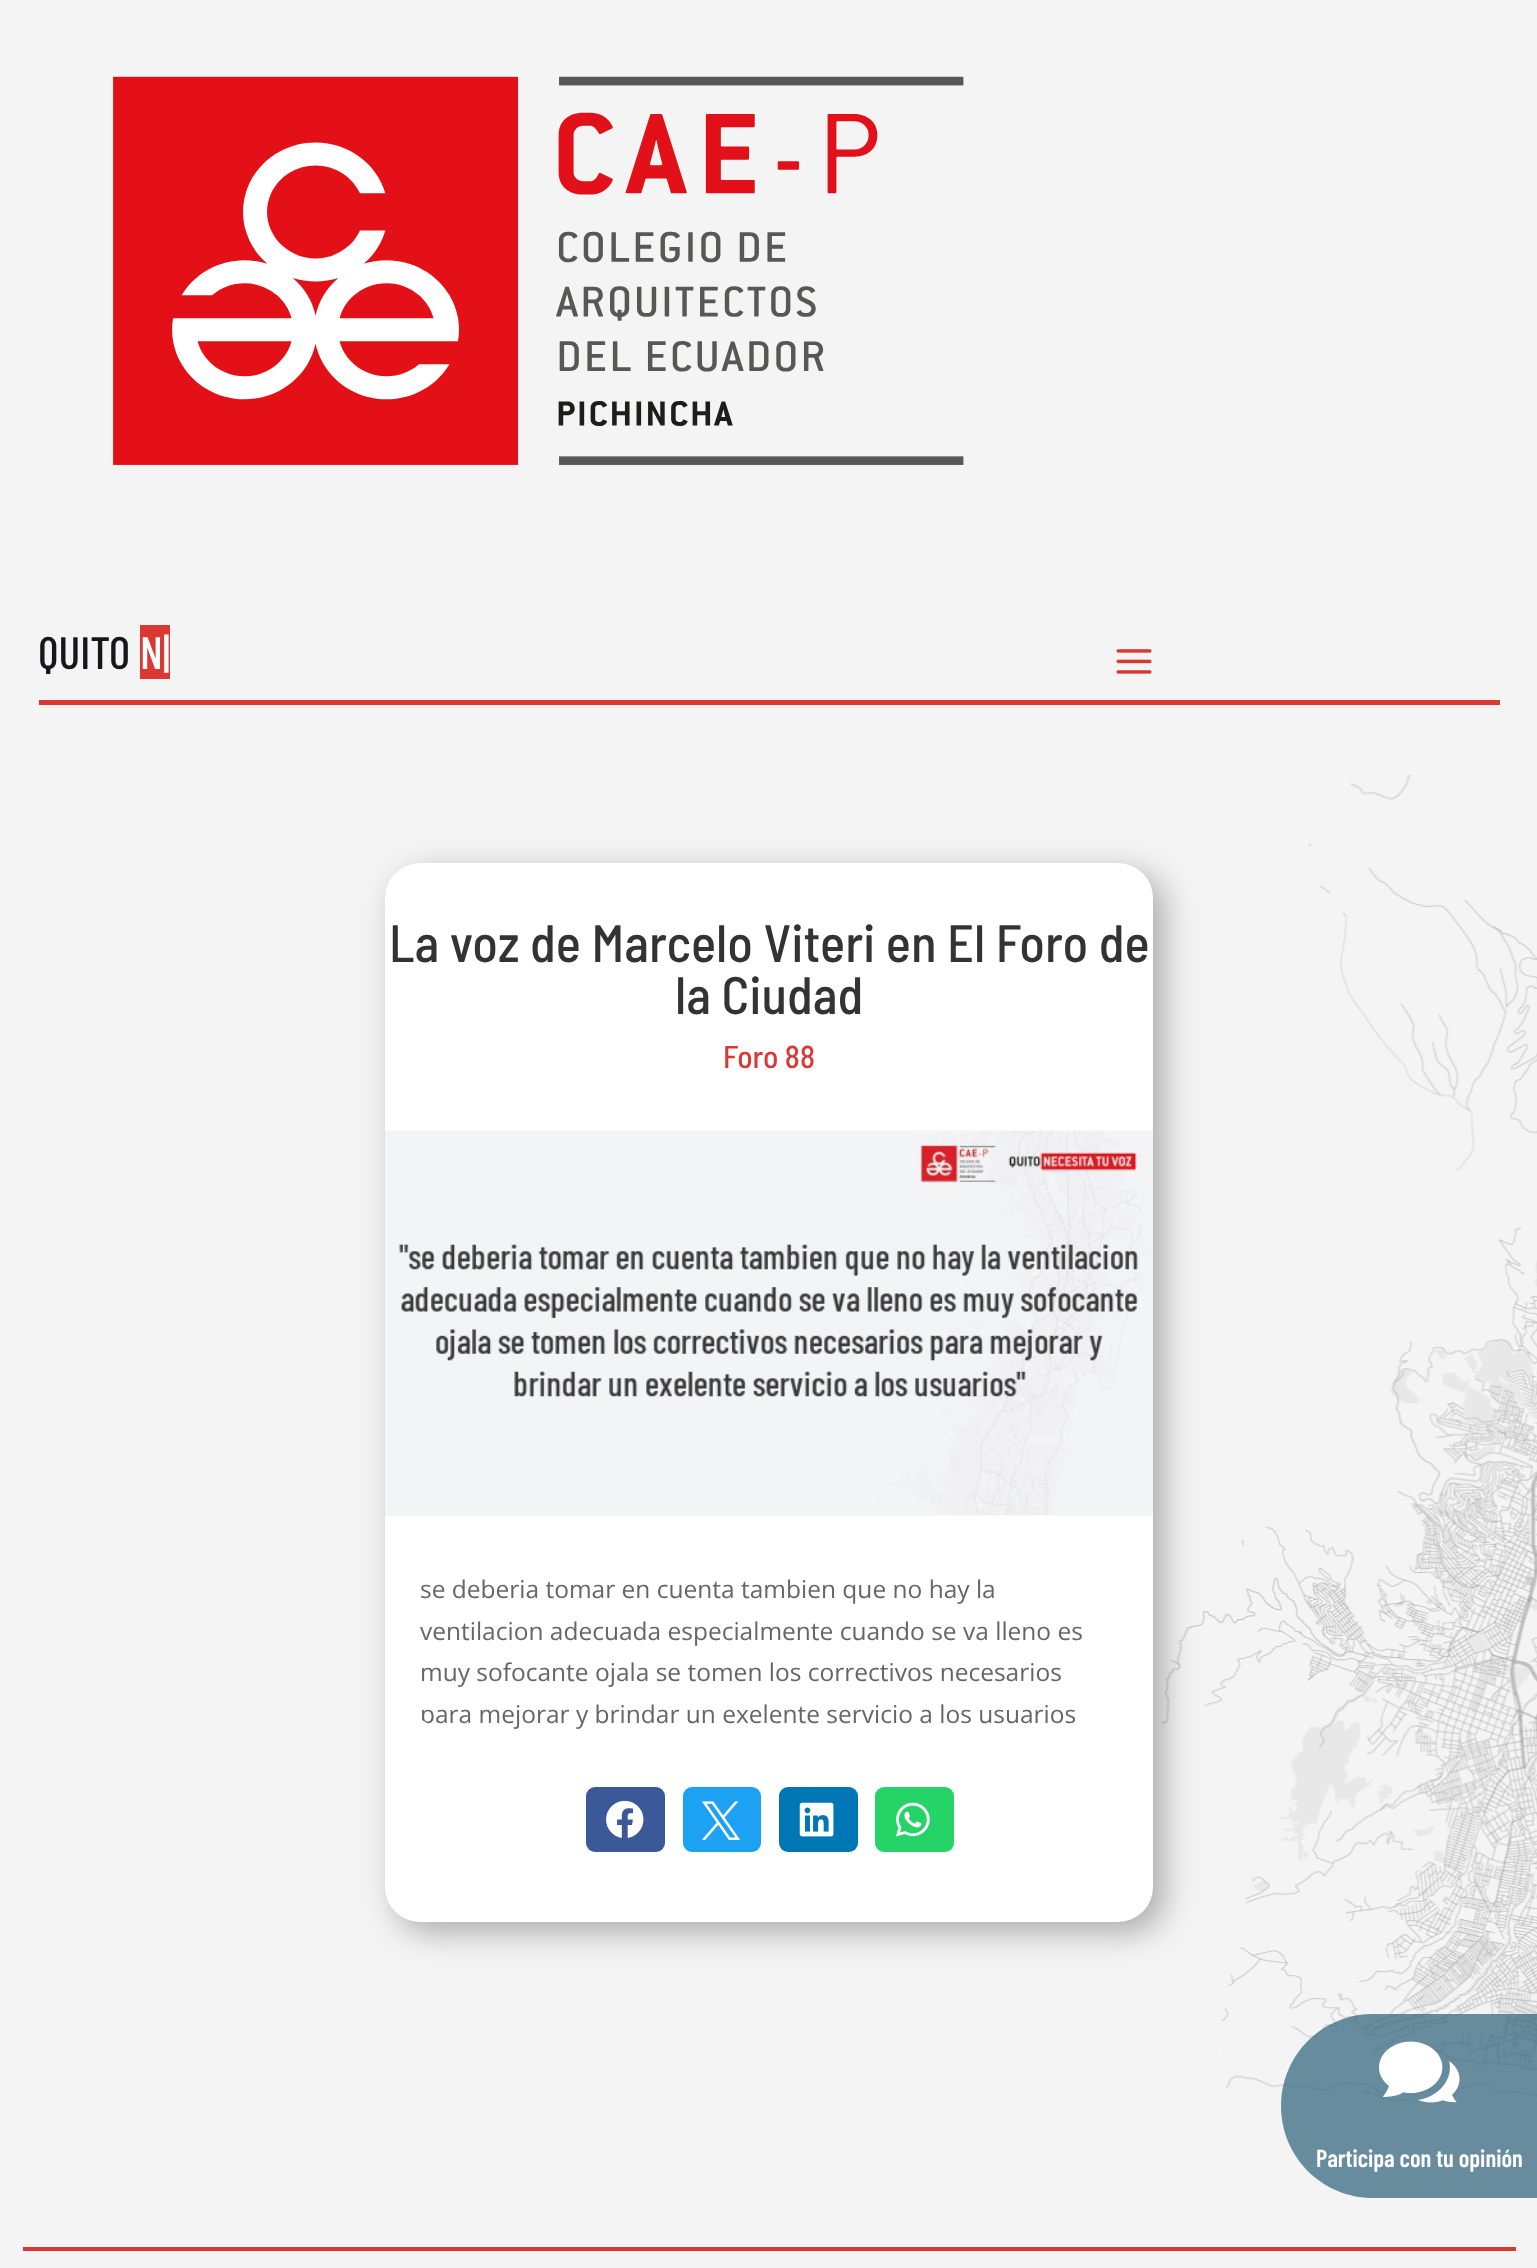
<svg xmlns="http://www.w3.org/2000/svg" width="1537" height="2268">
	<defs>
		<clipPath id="clip1"><rect x="385" y="1568" width="768" height="166" rx="83" /></clipPath>
	</defs>
	<rect width="100%" height="100%" fill="#F4F4F4" />
	<image x="113" y="76" width="851" height="389" href="assets/img1.png" />
	<rect x="39" y="700" width="1461" height="5" fill="#DA3933" />
	<text x="38" y="669" font-family="Barlow Condensed" font-size="45.5" font-weight="500" fill="#17161A">QUITO</text>
	<rect x="140" y="625" width="30" height="54" fill="#DA3933" />
	<text x="140" y="669" font-family="Barlow Condensed" font-size="45.5" font-weight="500" fill="#FFFFFF">N|</text>
	<image x="1116" y="649" width="36" height="25" href="assets/img2.png" />
	<image x="1161" y="775" width="376" height="1234" href="assets/img8.png" />
	<rect x="396" y="873" width="768" height="1059" rx="35" fill="#000000" fill-opacity="0.3" filter="blur(16px)" />
	<rect x="385" y="863" width="768" height="1059" rx="35" fill="#FFFFFF" />
	<g font-family="Barlow Semi Condensed" font-size="52.5" font-weight="500" fill="#333333">
		<text x="389" y="962">La voz de Marcelo Viteri en El Foro de</text>
		<text x="675" y="1014">la Ciudad</text>
	</g>
	<text x="723" y="1068" font-family="Barlow Semi Condensed" font-size="31.5" font-weight="500" fill="#DA3933">Foro 88</text>
	<image x="385" y="1130" width="768" height="386" href="assets/img3.png" />
	<g font-family="Open Sans" font-size="24.5" fill="#666666">
		<text x="420" y="1598">se deberia tomar en cuenta tambien que no hay la</text>
		<text x="420" y="1640">ventilacion adecuada especialmente cuando se va lleno es</text>
		<text x="420" y="1681">muy sofocante ojala se tomen los correctivos necesarios</text>
	</g>
	<g clip-path="url(#clip1)">
		<text x="420" y="1723" font-family="Open Sans" font-size="24.5" fill="#666666">para mejorar y brindar un exelente servicio a los usuarios</text>
	</g>
	<rect x="586" y="1787" width="79" height="65" rx="9" fill="#3B5998" />
	<image x="606" y="1800" width="38" height="38" href="assets/img4.png" />
	<rect x="683" y="1787" width="78" height="65" rx="9" fill="#1DA1F2" />
	<image x="701" y="1801" width="39" height="39" href="assets/img5.png" />
	<rect x="779" y="1787" width="79" height="65" rx="9" fill="#0077B5" />
	<image x="799" y="1802" width="35" height="35" href="assets/img6.png" />
	<rect x="875" y="1787" width="79" height="65" rx="9" fill="#25D366" />
	<image x="896" y="1802" width="34" height="35" href="assets/img7.png" />
	<image x="1216" y="2009" width="321" height="93" href="assets/img9.png" />
	<path d="M1373 2014H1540V2198H1373C1322 2198 1281 2157 1281 2106C1281 2055 1322 2014 1373 2014Z" fill="#31647D" fill-opacity="0.72" />
	<image x="1379" y="2041" width="81" height="62" href="assets/img10.png" />
	<text x="1316" y="2167" font-family="Barlow Condensed" font-size="24.5" font-weight="600" fill="#FFFFFF">Participa con tu opinión</text>
	<rect x="23" y="2247" width="1493" height="4" fill="#DA3933" />
</svg>
